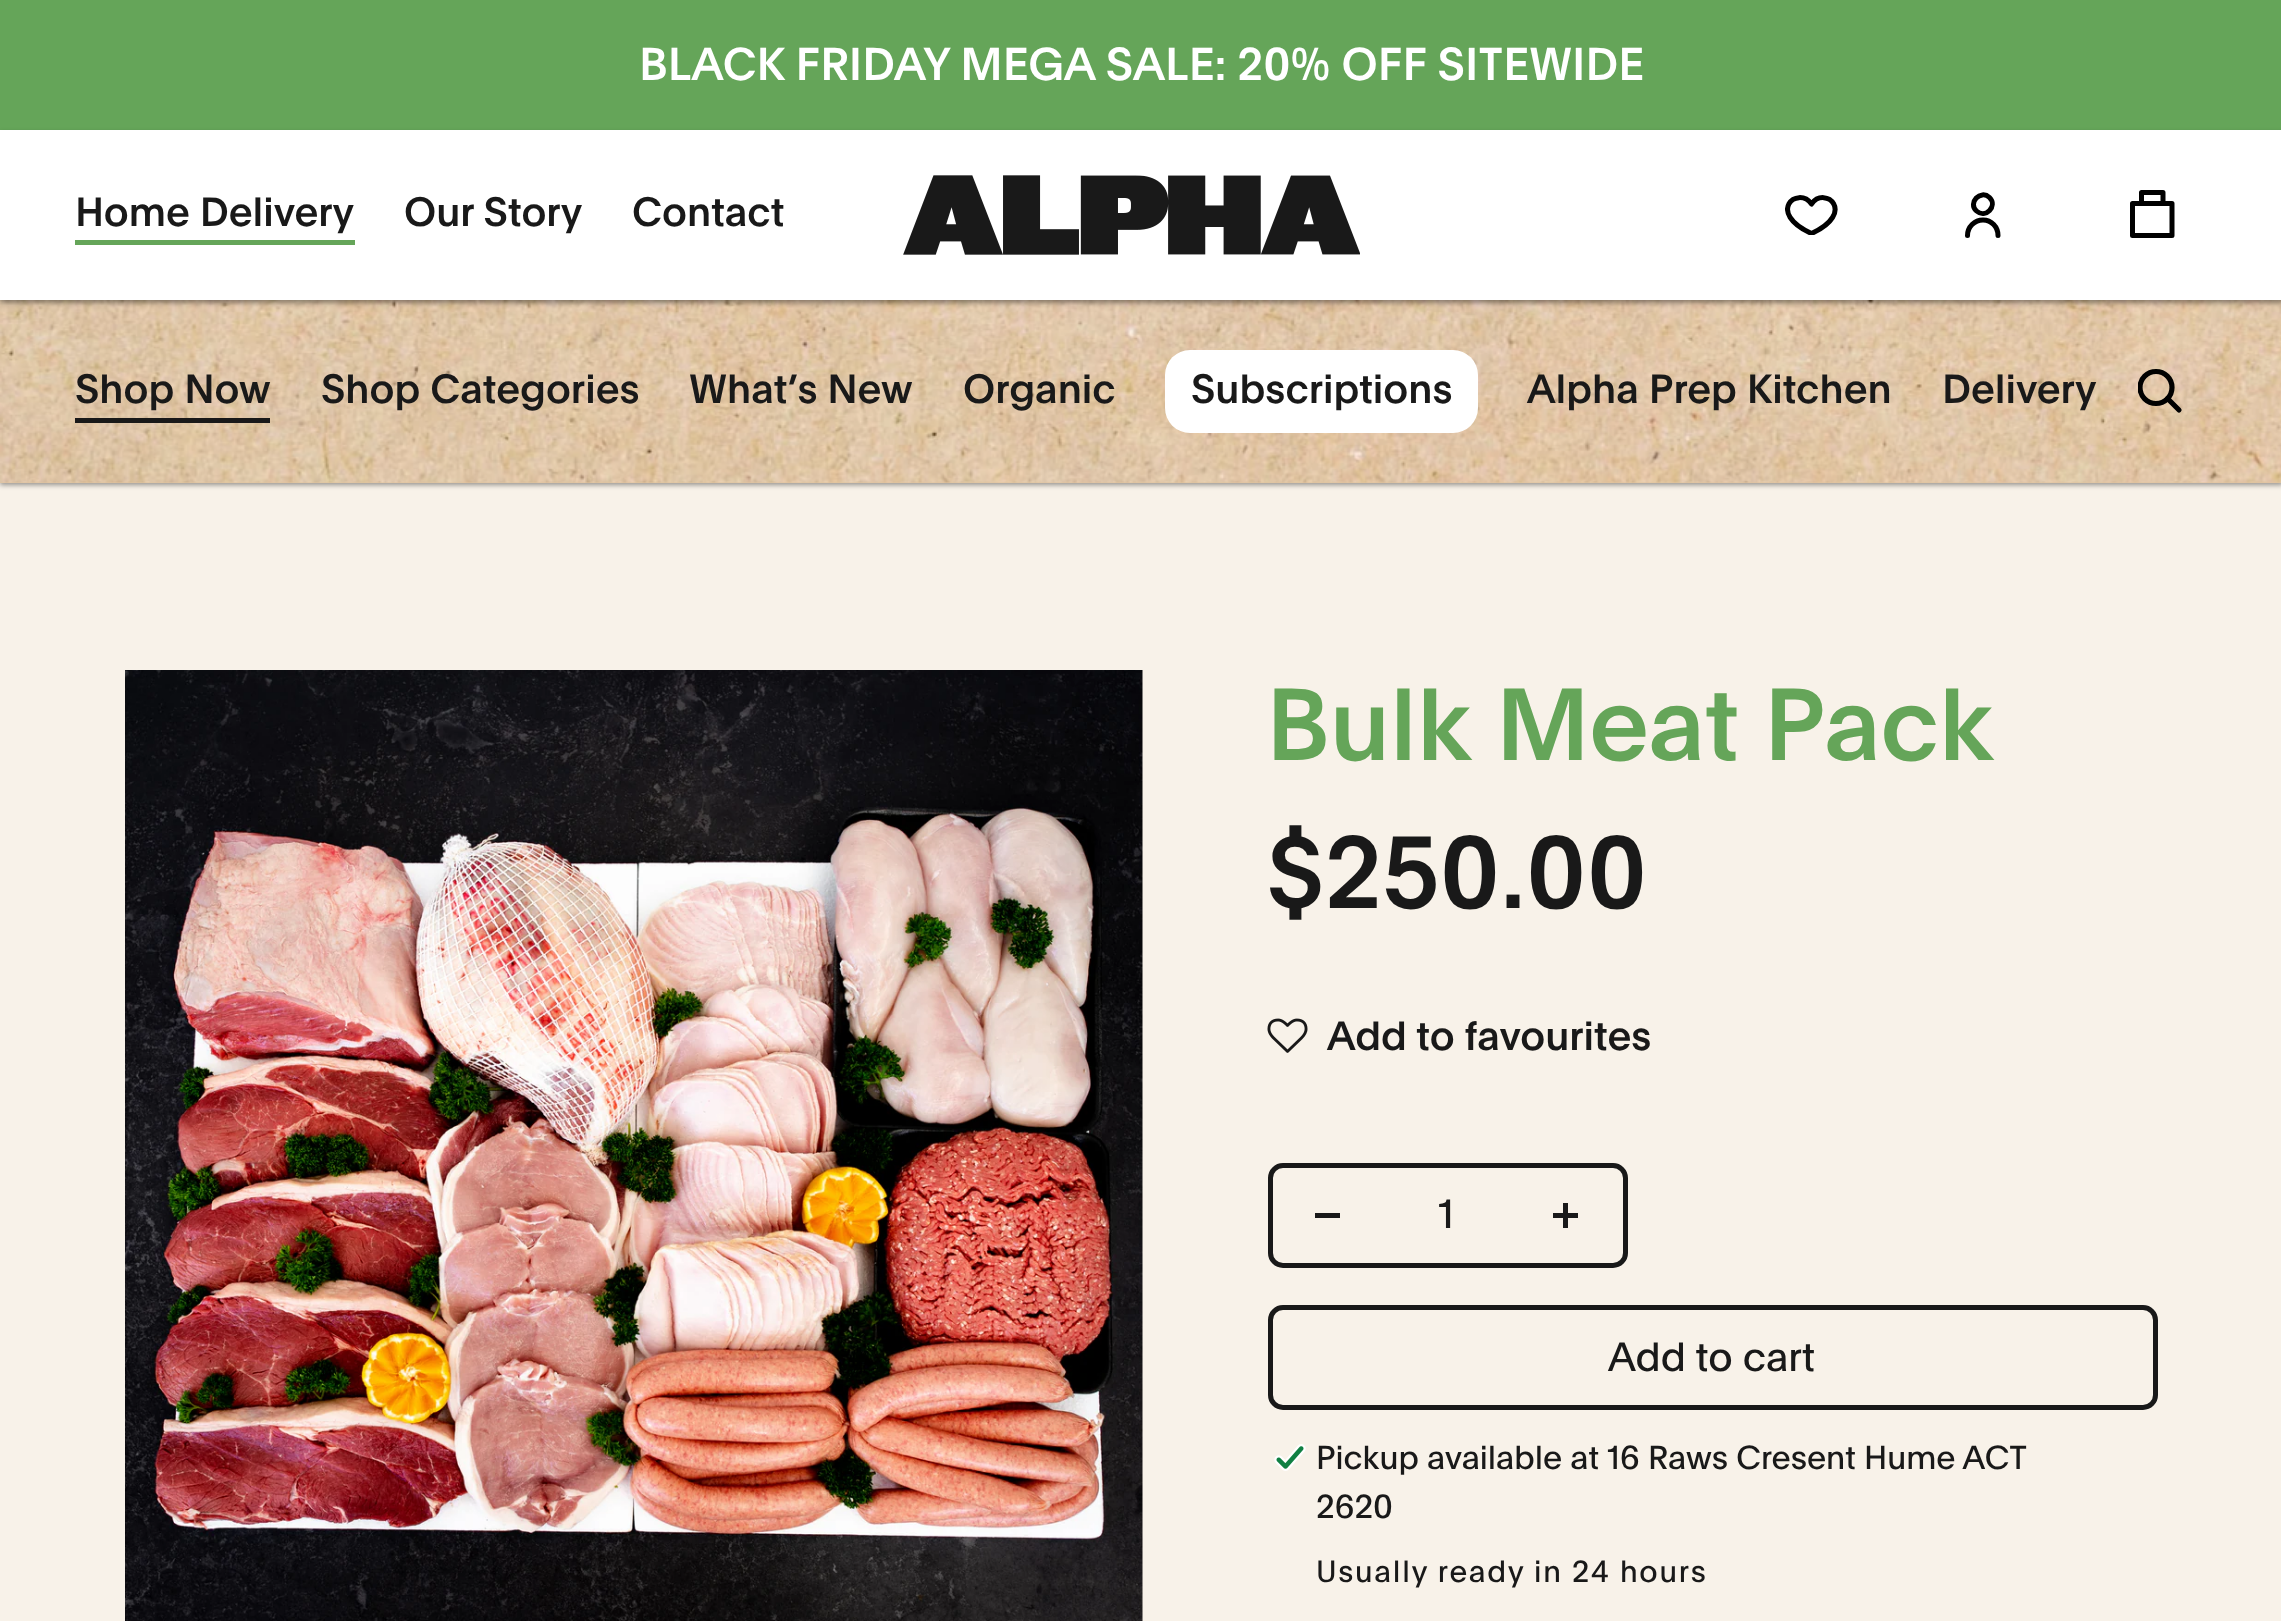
<svg xmlns="http://www.w3.org/2000/svg" width="2281" height="1621">
	<defs>
		<clipPath id="clip1"><rect x="1785" y="195" width="55" height="40" /></clipPath>
		<clipPath id="clip2"><rect x="2138" y="345" width="45" height="93" /></clipPath>
	</defs>
	<rect width="100%" height="100%" fill="#F8F2E9" />
	<rect x="0" y="0" width="2281" height="130" fill="#65A559" />
	<text x="639" y="80" font-family="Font" font-size="45" font-weight="500" fill="#FFFFFF">BLACK FRIDAY MEGA SALE: 20% OFF SITEWIDE</text>
	<rect x="0" y="303" width="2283" height="182" fill="#000000" fill-opacity="0.4" filter="blur(2.5px)" />
	<rect x="0" y="482" width="2281" height="1" fill="#E0C4A0" />
	<image x="0" y="300" width="2281" height="183" href="assets/img2.png" />
	<rect x="0" y="133" width="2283" height="170" fill="#000000" fill-opacity="0.4" filter="blur(2.5px)" />
	<rect x="0" y="130" width="2281" height="170" fill="#FFFFFF" />
	<text x="75" y="226" font-family="Font" font-size="40" font-weight="500" fill="#191919">Home Delivery</text>
	<rect x="75" y="240" width="280" height="5" fill="#65A559" />
	<g font-family="Font" font-size="40" font-weight="500" fill="#191919">
		<text x="404" y="226">Our Story</text>
		<text x="632" y="226">Contact</text>
	</g>
	<image x="903" y="175" width="457" height="80" href="assets/img1.png" />
	<g clip-path="url(#clip1)">
		<path d="M1811.5 204C1797.5 185 1765.5 212.5 1811.5 233.5C1857 212.5 1825 185 1811.5 204Z" fill="none" stroke="#000000" stroke-width="5" stroke-linecap="round" stroke-linejoin="round" />
	</g>
	<path d="M1967.5 235.5C1967.5 227 1974.5 220 1983 220C1991.5 220 1998 227 1998 235.5M1989.5 197.5C1998 206 1985.5 219 1976.5 211C1967.5 203 1980.5 189 1989.5 197.5Z" fill="none" stroke="#000000" stroke-width="5" stroke-linecap="round" stroke-linejoin="round" />
	<path d="M2132.5 203.5H2172V235.5H2132.5ZM2141.5 203.5V192.5H2163V203.5" fill="none" stroke="#000000" stroke-width="5" stroke-linecap="round" stroke-linejoin="round" />
	<text x="75" y="403" font-family="Font" font-size="40" font-weight="500" fill="#191919">Shop Now</text>
	<rect x="75" y="418" width="195" height="5" fill="#191919" />
	<g font-family="Font" font-size="40" font-weight="500" fill="#191919">
		<text x="321" y="403">Shop Categories</text>
		<text x="689" y="403">What’s New</text>
		<text x="963" y="403">Organic</text>
	</g>
	<rect x="1165" y="350" width="313" height="83" rx="25" fill="#FFFFFF" />
	<g font-family="Font" font-size="40" font-weight="500" fill="#191919">
		<text x="1191" y="403">Subscriptions</text>
		<text x="1527" y="403">Alpha Prep Kitchen</text>
		<text x="1942" y="403">Delivery</text>
	</g>
	<g clip-path="url(#clip2)">
		<circle cx="2156" cy="387.5" r="16" fill="none" stroke="#000000" stroke-width="5.2" />
	</g>
	<path d="M2167.5 398.5L2179 410" fill="none" stroke="#000000" stroke-width="5.2" stroke-linecap="round" stroke-linejoin="round" />
	<image x="125" y="670" width="1018" height="951" href="assets/img3.png" />
	<text x="1266" y="760" font-family="Font" font-size="100" font-weight="500" fill="#65A559">Bulk Meat Pack</text>
	<text x="1266" y="908" font-family="Font" font-size="100" font-weight="500" fill="#191919">$250.00</text>
	<image x="1267" y="1018" width="41" height="35" href="assets/img4.png" />
	<text x="1327" y="1050" font-family="Font" font-size="40" font-weight="500" fill="#191919">Add to favourites</text>
	<rect x="1315" y="1213" width="25" height="5" fill="#191919" />
	<rect x="1553" y="1213" width="25" height="5" fill="#191919" />
	<rect x="1563" y="1203" width="5" height="25" fill="#191919" />
	<rect x="1270.5" y="1165.5" width="355" height="100" rx="12.5" fill="none" stroke="#191919" stroke-width="5" />
	<text x="1438" y="1228" font-family="Font" font-size="40" fill="#191919">1</text>
	<rect x="1270.5" y="1307.5" width="885" height="100" rx="12.5" fill="none" stroke="#191919" stroke-width="5" />
	<text x="1608" y="1371" font-family="Font" font-size="40" fill="#191919">Add to cart</text>
	<image x="1274" y="1444" width="32" height="27" href="assets/img5.png" />
	<g font-family="Font" font-size="32.5" fill="#191919">
		<text x="1316" y="1469">Pickup available at</text>
		<text x="1607" y="1469">16 Raws Cresent Hume ACT</text>
		<text x="1316" y="1518">2620</text>
	</g>
	<text x="1316" y="1582" font-family="Font" font-size="30" letter-spacing="1.75" fill="#191919">Usually ready in 24 hours</text>
</svg>
